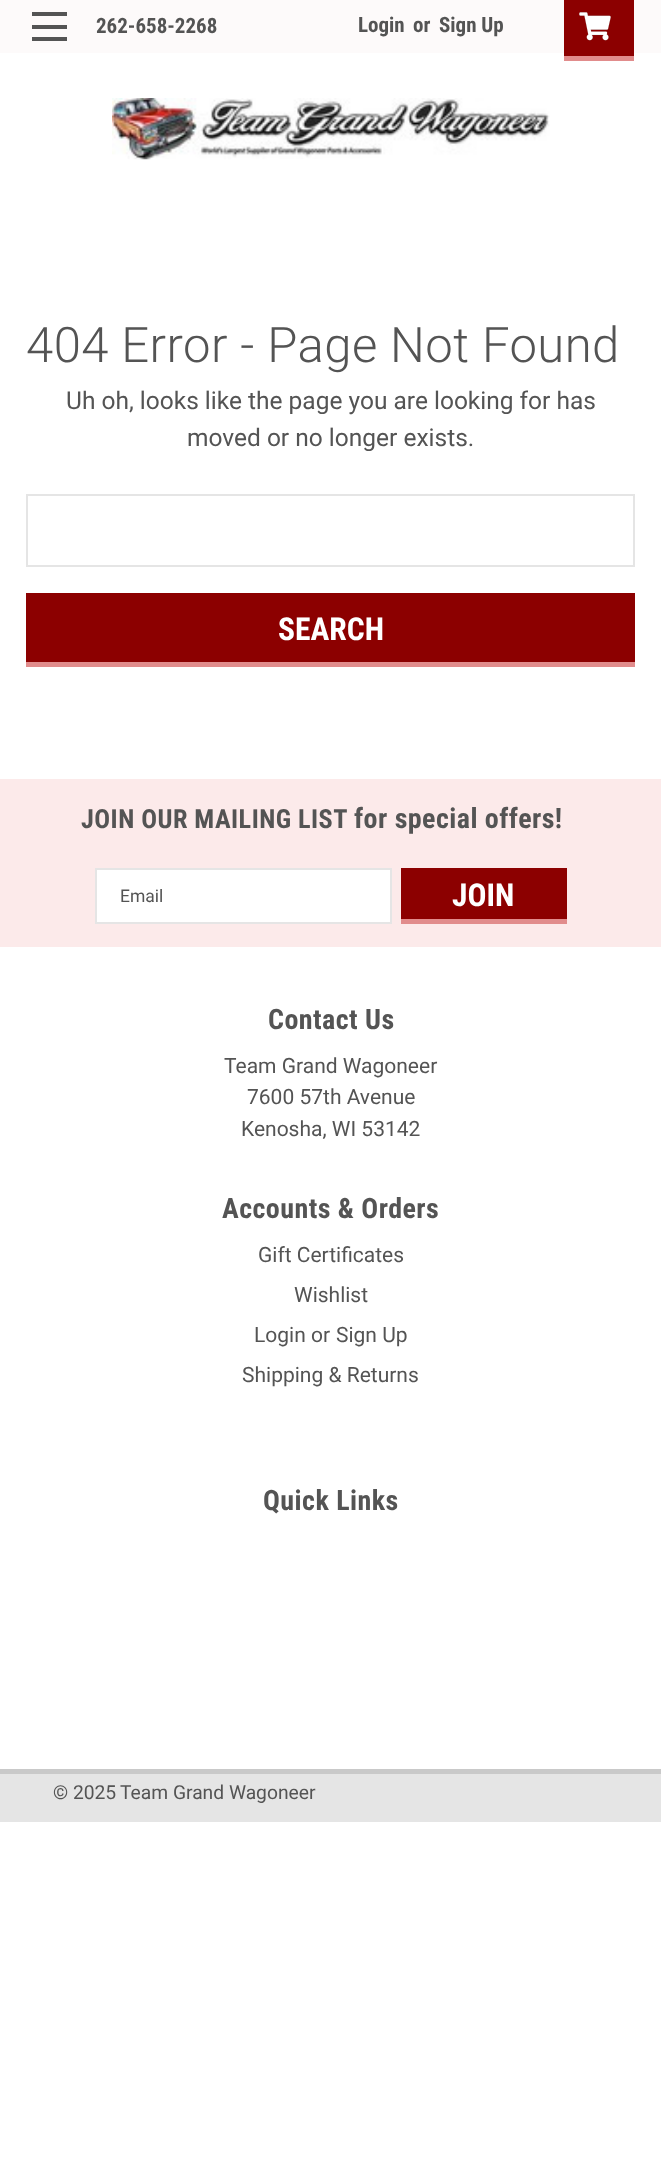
<svg xmlns="http://www.w3.org/2000/svg" width="661" height="2176">
	<rect width="100%" height="100%" fill="#FFFFFF" />
	<rect x="0" y="0" width="661" height="53" fill="#FDFAFA" />
	<rect x="32" y="25" width="35" height="4" fill="#545454" />
	<rect x="32" y="12" width="35" height="4" fill="#545454" />
	<rect x="32" y="37" width="35" height="4" fill="#545454" />
	<g font-family="Roboto Condensed" font-size="21" font-weight="700" fill="#545454">
		<text x="96" y="33">262-658-2268</text>
		<text x="358" y="32">Login</text>
		<text x="413" y="32">or</text>
		<text x="439" y="32">Sign Up</text>
	</g>
	<rect x="564" y="0" width="70" height="56" fill="#8C0000" />
	<rect x="564" y="56" width="70" height="5" fill="#E18C8C" />
	<image x="579" y="12" width="32" height="29" href="assets/img1.png" />
	<image x="112" y="98" width="438" height="62" href="assets/img2.png" />
	<text x="26" y="362" font-family="Roboto" font-size="49" font-weight="300" letter-spacing="0.45" fill="#545454">404 Error - Page Not Found</text>
	<g font-family="Roboto" font-size="24.5" fill="#545454">
		<text x="66" y="409">Uh oh, looks like the page you are looking for has</text>
		<text x="187" y="446">moved or no longer exists.</text>
	</g>
	<rect x="27" y="495" width="607" height="71" fill="none" stroke="#E5E5E5" stroke-width="2" />
	<rect x="26" y="593" width="609" height="69" fill="#8C0000" />
	<rect x="26" y="662" width="609" height="5" fill="#E18C8C" />
	<text x="278" y="640" font-family="Roboto Condensed" font-size="31.5" font-weight="700" fill="#FFFFFF">SEARCH</text>
	<rect x="0" y="779" width="661" height="168" fill="#FCEAEA" />
	<text x="81" y="828" font-family="Roboto Condensed" font-size="26.25" font-weight="700" letter-spacing="0.45" fill="#545454">JOIN OUR MAILING LIST</text>
	<text x="354" y="828" font-family="Roboto Condensed" font-size="28" font-weight="700" letter-spacing="0.45" fill="#545454">for special offers!</text>
	<rect x="96" y="869" width="295" height="54" fill="#FFFFFF" stroke="#E5E5E5" stroke-width="2" />
	<text x="120" y="902" font-family="Roboto" font-size="17.5" fill="#545454">Email</text>
	<rect x="401" y="868" width="166" height="51" fill="#8C0000" />
	<rect x="401" y="919" width="166" height="5" fill="#E18C8C" />
	<text x="452" y="906" font-family="Roboto Condensed" font-size="31.5" font-weight="700" fill="#FFFFFF">JOIN</text>
	<text x="268" y="1029" font-family="Roboto Condensed" font-size="28" font-weight="700" letter-spacing="0.45" fill="#545454">Contact Us</text>
	<g font-family="Roboto" font-size="21" fill="#545454">
		<text x="224" y="1073">Team Grand Wagoneer</text>
		<text x="247" y="1104">7600 57th Avenue</text>
		<text x="241" y="1136">Kenosha, WI 53142</text>
	</g>
	<text x="222" y="1218" font-family="Roboto Condensed" font-size="28" font-weight="700" letter-spacing="0.45" fill="#545454">Accounts &amp; Orders</text>
	<g font-family="Roboto" font-size="21" fill="#545454">
		<text x="258" y="1262">Gift Certificates</text>
		<text x="294" y="1302">Wishlist</text>
		<text x="254" y="1342">Login or</text>
		<text x="336" y="1342">Sign Up</text>
		<text x="242" y="1382">Shipping &amp; Returns</text>
	</g>
	<text x="263" y="1510" font-family="Roboto Condensed" font-size="28" font-weight="700" letter-spacing="0.45" fill="#545454">Quick Links</text>
	<rect x="0" y="1774" width="661" height="48" fill="#E5E5E5" />
	<rect x="0" y="1769" width="661" height="5" fill="#C9C9C9" />
	<g font-family="Roboto" font-size="19.25" fill="#545454">
		<text x="53" y="1799">© 2025</text>
		<text x="120" y="1799">Team Grand Wagoneer</text>
	</g>
</svg>
